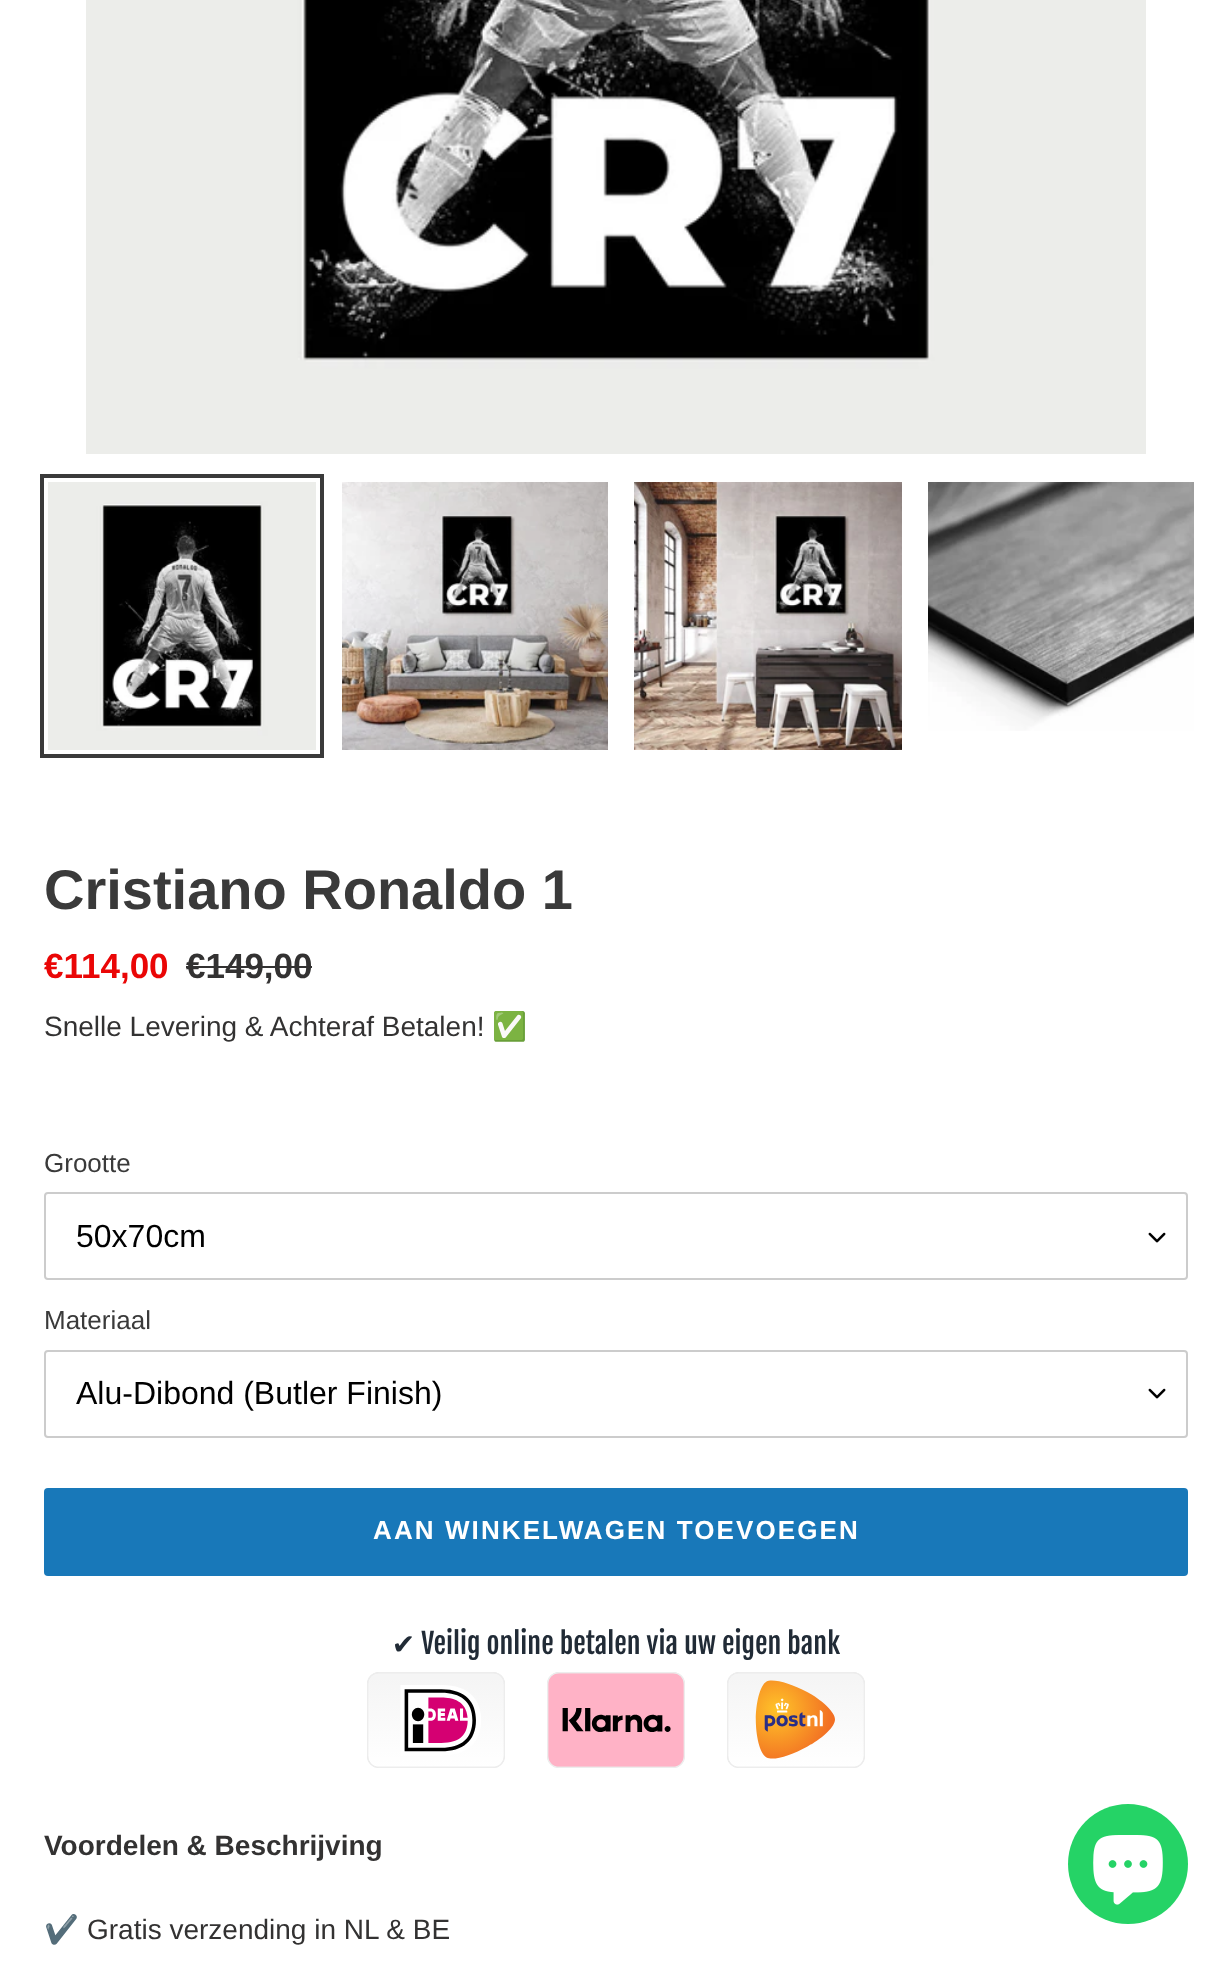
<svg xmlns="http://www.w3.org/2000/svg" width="1232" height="1965">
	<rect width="100%" height="100%" fill="#FFFFFF" />
	<image x="86" y="0" width="1060" height="454" href="assets/img1.png" />
	<rect x="42" y="476" width="280" height="280" fill="none" stroke="#3A3A3A" stroke-width="4" />
	<image x="48" y="482" width="268" height="268" href="assets/img2.png" />
	<image x="342" y="482" width="266" height="268" href="assets/img3.png" />
	<image x="634" y="482" width="268" height="268" href="assets/img4.png" />
	<image x="928" y="482" width="266" height="249" href="assets/img5.png" />
	<text x="44" y="909" font-family="Liberation Sans" font-size="56" font-weight="700" fill="#3A3A3A">Cristiano Ronaldo 1</text>
	<text x="44" y="978" font-family="Liberation Sans" font-size="35" font-weight="700" fill="#EA0606">€114,00</text>
	<text x="186" y="978" font-family="Liberation Sans" font-size="35" font-weight="700" fill="#333232">€149,00</text>
	<rect x="186" y="966" width="126" height="2" fill="#333232" />
	<text x="44" y="1036" font-family="Liberation Sans" font-size="28" fill="#333232">Snelle Levering &amp; Achteraf Betalen!</text>
	<text x="492" y="1036" font-family="Noto Color Emoji" font-size="28" fill="#333232">✅</text>
	<text x="44" y="1172" font-family="Liberation Sans" font-size="26" fill="#3A3A3A">Grootte</text>
	<image x="1148" y="1232" width="18" height="11" href="assets/img6.png" />
	<rect x="45" y="1193" width="1142" height="86" rx="3" fill="none" stroke="#CCCCCC" stroke-width="2" />
	<text x="76" y="1247" font-family="Liberation Sans" font-size="32" fill="#000000">50x70cm</text>
	<text x="44" y="1329" font-family="Liberation Sans" font-size="26" fill="#3A3A3A">Materiaal</text>
	<image x="1148" y="1388" width="18" height="11" href="assets/img6.png" />
	<rect x="45" y="1351" width="1142" height="86" rx="3" fill="none" stroke="#CCCCCC" stroke-width="2" />
	<text x="76" y="1404" font-family="Liberation Sans" font-size="32" fill="#000000">Alu-Dibond (Butler Finish)</text>
	<rect x="44" y="1488" width="1144" height="88" rx="4" fill="#1878B9" />
	<text x="373" y="1539" font-family="Liberation Sans" font-size="26" font-weight="700" letter-spacing="2.1" fill="#FFFFFF">AAN WINKELWAGEN TOEVOEGEN</text>
	<image x="367" y="1628" width="498" height="140" href="assets/img7.png" />
	<text x="44" y="1855" font-family="Liberation Sans" font-size="28" font-weight="700" fill="#333232">Voordelen &amp; Beschrijving</text>
	<text x="44" y="1939" font-family="Noto Color Emoji" font-size="28" fill="#333232">✔️</text>
	<text x="87" y="1939" font-family="Liberation Sans" font-size="28" fill="#333232">Gratis verzending in NL &amp; BE</text>
	<circle cx="1128" cy="1864" r="60" fill="#25D366" />
	<image x="1093" y="1835" width="70" height="70" href="assets/img8.png" />
</svg>
